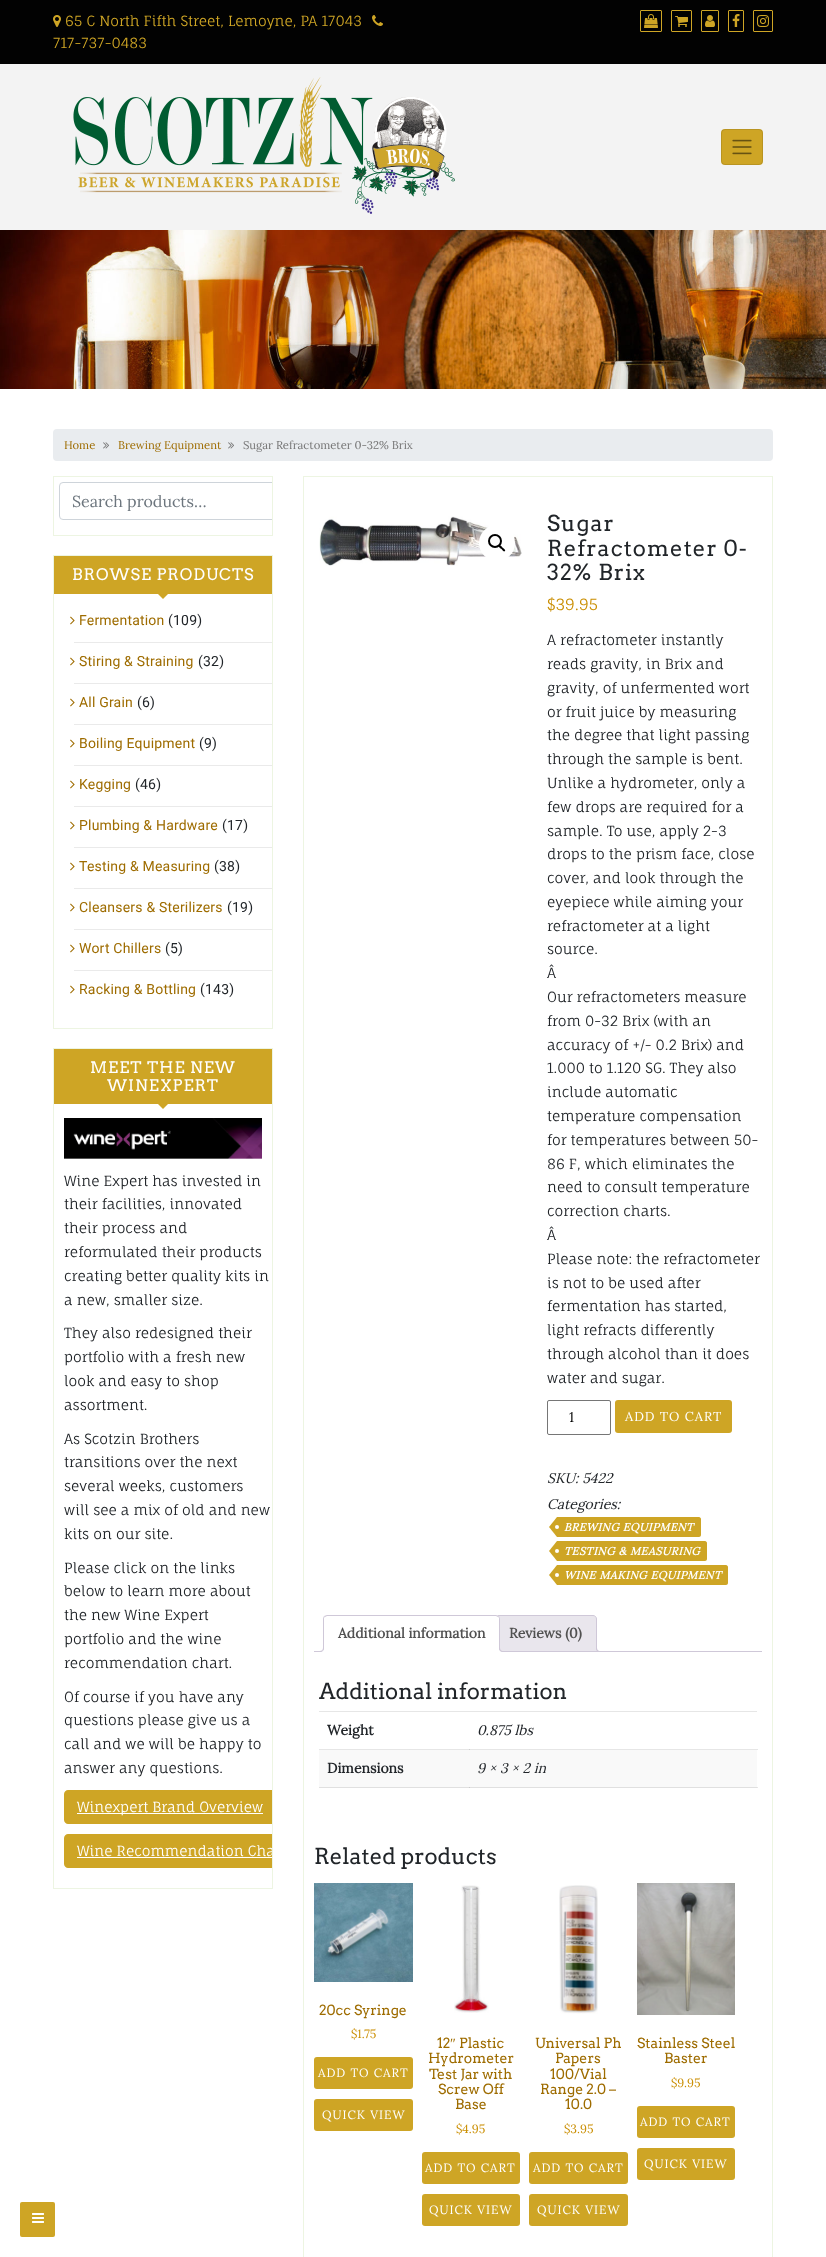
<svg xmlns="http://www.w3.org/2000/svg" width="826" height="2257">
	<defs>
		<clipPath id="clip1"><rect x="54" y="477" width="218" height="58" /></clipPath>
		<clipPath id="clip2"><rect x="54" y="1049" width="218" height="839" /></clipPath>
		<clipPath id="clip3"><rect x="314" y="1615" width="448" height="37" /></clipPath>
	</defs>
	<rect width="100%" height="100%" fill="#FFFFFF" />
	<rect x="319" y="1749" width="151" height="1" fill="#E6E6E6" />
	<rect x="757" y="1787" width="1" height="1" fill="#E6E6E6" />
	<rect x="0" y="0" width="826" height="64" fill="#020202" />
	<image x="53" y="15" width="8" height="12" href="assets/img1.png" />
	<text x="65" y="26" font-family="Fauna One" font-size="14" fill="#CEA525">65 C North Fifth Street, Lemoyne, PA 17043</text>
	<image x="372" y="15" width="11" height="11" href="assets/img2.png" />
	<text x="53" y="48" font-family="Fauna One" font-size="14" fill="#CEA525">717-737-0483</text>
	<rect x="640.5" y="10.5" width="21" height="21" rx="0.5" fill="none" stroke="#CEA525" />
	<image x="644" y="14" width="14" height="14" href="assets/img3.png" />
	<rect x="671.5" y="10.5" width="20" height="21" rx="0.5" fill="none" stroke="#CEA525" />
	<image x="675" y="16" width="13" height="11" href="assets/img4.png" />
	<rect x="701.5" y="10.5" width="17" height="21" rx="0.5" fill="none" stroke="#CEA525" />
	<image x="705" y="15" width="10" height="12" href="assets/img5.png" />
	<rect x="728.5" y="10.5" width="15" height="21" rx="0.5" fill="none" stroke="#CEA525" />
	<image x="732" y="14" width="8" height="13" href="assets/img6.png" />
	<rect x="753.5" y="10.5" width="19" height="21" rx="0.5" fill="none" stroke="#CEA525" />
	<image x="757" y="15" width="12" height="12" href="assets/img7.png" />
	<rect x="0" y="64" width="826" height="166" fill="#F3F3F3" />
	<image x="73" y="77" width="382" height="137" href="assets/img8.png" />
	<rect x="721" y="129" width="42" height="36" rx="4" fill="#CEA525" />
	<rect x="721.5" y="129.5" width="41" height="35" rx="3.5" fill="none" stroke="#000000" stroke-opacity="0.1" />
	<image x="732" y="139" width="20" height="16" href="assets/img9.png" />
	<image x="0" y="230" width="826" height="159" href="assets/img10.png" />
	<rect x="20" y="2202" width="35" height="35" rx="2" fill="#CEA525" />
	<image x="32" y="2213" width="12" height="10" href="assets/img11.png" />
	<rect x="53" y="429" width="720" height="32" rx="4" fill="#E9ECEF" />
	<text x="64" y="449" font-family="Lora" font-size="11.25" fill="#9E6C00">Home</text>
	<image x="103" y="442" width="6" height="7" href="assets/img12.png" />
	<text x="118" y="449" font-family="Lora" font-size="11.25" fill="#9E6C00">Brewing Equipment</text>
	<image x="228" y="442" width="6" height="7" href="assets/img12.png" />
	<text x="243" y="449" font-family="Lora" font-size="11.25" fill="#757575">Sugar Refractometer 0-32% Brix</text>
	<rect x="53.5" y="476.5" width="219" height="59" fill="none" stroke="#EDF5E2" />
	<g clip-path="url(#clip1)">
		<rect x="59.5" y="482.5" width="237" height="37" rx="3.5" fill="none" stroke="#CED4DA" />
	</g>
	<text x="72" y="507" font-family="Lora" font-size="16" fill="#6C757D">Search products…</text>
	<rect x="53.5" y="555.5" width="219" height="473" fill="none" stroke="#EDF5E2" />
	<rect x="54" y="556" width="218" height="38" fill="#CEA525" />
	<text x="72" y="580" font-family="Arvo" font-size="16" letter-spacing="1" fill="#FFFFFF">BROWSE PRODUCTS</text>
	<path d="M158 594H168L163 599Z" fill="#CEA525" />
	<rect x="74" y="642" width="198" height="1" fill="#EAEAEA" />
	<image x="70" y="616" width="5" height="9" href="assets/img13.png" />
	<text x="79" y="625" font-family="Roboto" font-size="14" letter-spacing="0.2" fill="#9E6C00">Fermentation</text>
	<text x="168" y="625" font-family="Roboto" font-size="14" letter-spacing="0.2" fill="#212529">(109)</text>
	<rect x="74" y="683" width="198" height="1" fill="#EAEAEA" />
	<image x="70" y="657" width="5" height="9" href="assets/img13.png" />
	<text x="79" y="666" font-family="Roboto" font-size="14" letter-spacing="0.2" fill="#9E6C00">Stiring &amp; Straining</text>
	<text x="198" y="666" font-family="Roboto" font-size="14" letter-spacing="0.2" fill="#212529">(32)</text>
	<rect x="74" y="724" width="198" height="1" fill="#EAEAEA" />
	<image x="70" y="698" width="5" height="9" href="assets/img13.png" />
	<text x="79" y="707" font-family="Roboto" font-size="14" letter-spacing="0.2" fill="#9E6C00">All Grain</text>
	<text x="137" y="707" font-family="Roboto" font-size="14" letter-spacing="0.2" fill="#212529">(6)</text>
	<rect x="74" y="765" width="198" height="1" fill="#EAEAEA" />
	<image x="70" y="739" width="5" height="9" href="assets/img13.png" />
	<text x="79" y="748" font-family="Roboto" font-size="14" letter-spacing="0.2" fill="#9E6C00">Boiling Equipment</text>
	<text x="199" y="748" font-family="Roboto" font-size="14" letter-spacing="0.2" fill="#212529">(9)</text>
	<rect x="74" y="806" width="198" height="1" fill="#EAEAEA" />
	<image x="70" y="780" width="5" height="9" href="assets/img13.png" />
	<text x="79" y="789" font-family="Roboto" font-size="14" letter-spacing="0.2" fill="#9E6C00">Kegging</text>
	<text x="135" y="789" font-family="Roboto" font-size="14" letter-spacing="0.2" fill="#212529">(46)</text>
	<rect x="74" y="847" width="198" height="1" fill="#EAEAEA" />
	<image x="70" y="821" width="5" height="9" href="assets/img13.png" />
	<text x="79" y="830" font-family="Roboto" font-size="14" letter-spacing="0.2" fill="#9E6C00">Plumbing &amp; Hardware</text>
	<text x="222" y="830" font-family="Roboto" font-size="14" letter-spacing="0.2" fill="#212529">(17)</text>
	<rect x="74" y="888" width="198" height="1" fill="#EAEAEA" />
	<image x="70" y="862" width="5" height="9" href="assets/img13.png" />
	<text x="79" y="871" font-family="Roboto" font-size="14" letter-spacing="0.2" fill="#9E6C00">Testing &amp; Measuring</text>
	<text x="214" y="871" font-family="Roboto" font-size="14" letter-spacing="0.2" fill="#212529">(38)</text>
	<rect x="74" y="929" width="198" height="1" fill="#EAEAEA" />
	<image x="70" y="903" width="5" height="9" href="assets/img13.png" />
	<text x="79" y="912" font-family="Roboto" font-size="14" letter-spacing="0.2" fill="#9E6C00">Cleansers &amp; Sterilizers</text>
	<text x="227" y="912" font-family="Roboto" font-size="14" letter-spacing="0.2" fill="#212529">(19)</text>
	<rect x="74" y="970" width="198" height="1" fill="#EAEAEA" />
	<image x="70" y="944" width="5" height="9" href="assets/img13.png" />
	<text x="79" y="953" font-family="Roboto" font-size="14" letter-spacing="0.2" fill="#9E6C00">Wort Chillers</text>
	<text x="165" y="953" font-family="Roboto" font-size="14" letter-spacing="0.2" fill="#212529">(5)</text>
	<image x="70" y="985" width="5" height="9" href="assets/img13.png" />
	<text x="79" y="994" font-family="Roboto" font-size="14" letter-spacing="0.2" fill="#9E6C00">Racking &amp; Bottling</text>
	<text x="200" y="994" font-family="Roboto" font-size="14" letter-spacing="0.2" fill="#212529">(143)</text>
	<rect x="53.5" y="1048.5" width="219" height="840" fill="none" stroke="#EDF5E2" />
	<rect x="54" y="1049" width="218" height="55" fill="#CEA525" />
	<g font-family="Arvo" font-size="16" letter-spacing="1" fill="#FFFFFF">
		<text x="90" y="1073">MEET THE NEW</text>
		<text x="107" y="1091">WINEXPERT</text>
	</g>
	<path d="M158 1104H168L163 1109Z" fill="#CEA525" />
	<image x="64" y="1118" width="198" height="41" href="assets/img14.png" />
	<g font-family="Fauna One" font-size="14" fill="#212529">
		<text x="64" y="1186">Wine Expert has invested in</text>
		<text x="64" y="1209">their facilities, innovated</text>
		<text x="64" y="1233">their process and</text>
		<text x="64" y="1257">reformulated their products</text>
		<text x="64" y="1281">creating better quality kits in</text>
		<text x="64" y="1305">a new, smaller size.</text>
		<text x="64" y="1338">They also redesigned their</text>
		<text x="64" y="1362">portfolio with a fresh new</text>
		<text x="64" y="1386">look and easy to shop</text>
		<text x="64" y="1410">assortment.</text>
		<text x="64" y="1444">As Scotzin Brothers</text>
		<text x="64" y="1467">transitions over the next</text>
		<text x="64" y="1491">several weeks, customers</text>
		<text x="64" y="1515">will see a mix of old and new</text>
		<text x="64" y="1539">kits on our site.</text>
		<text x="64" y="1573">Please click on the links</text>
		<text x="64" y="1596">below to learn more about</text>
		<text x="64" y="1620">the new Wine Expert</text>
		<text x="64" y="1644">portfolio and the wine</text>
		<text x="64" y="1668">recommendation chart.</text>
		<text x="64" y="1702">Of course if you have any</text>
		<text x="64" y="1725">questions please give us a</text>
		<text x="64" y="1749">call and we will be happy to</text>
		<text x="64" y="1773">answer any questions.</text>
	</g>
	<path d="M68 1790H272V1824H68C66 1824 64 1822 64 1820V1794C64 1792 66 1790 68 1790Z" fill="#CEA525" />
	<rect x="77" y="1813" width="186" height="1" fill="#FFFFFF" />
	<text x="77" y="1812" font-family="Fauna One" font-size="14" fill="#FFFFFF">Winexpert Brand Overview</text>
	<path d="M68 1834H272V1868H68C66 1868 64 1866 64 1864V1838C64 1836 66 1834 68 1834Z" fill="#CEA525" />
	<g clip-path="url(#clip2)">
		<text x="77" y="1856" font-family="Fauna One" font-size="14" fill="#FFFFFF">Wine Recommendation Cha</text>
	</g>
	<rect x="77" y="1857" width="195" height="1" fill="#FFFFFF" />
	<rect x="303.5" y="476.5" width="469" height="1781" fill="none" stroke="#EDF5E2" />
	<image x="319" y="516" width="203" height="50" href="assets/img15.png" />
	<circle cx="497" cy="543" r="18" fill="#FFFFFF" />
	<circle cx="495" cy="541" r="6" fill="none" stroke="#000000" stroke-width="2" />
	<path d="M499 545.5C500.5 544.5 502 547 502.5 547.5C503.5 548.5 506 550 505 551C503.5 552.5 502 549.5 501.5 549C500.5 548.5 498 546.5 499 545.5Z" fill="#000000" />
	<g font-family="Arvo" font-size="22" letter-spacing="1" fill="#212529">
		<text x="547" y="531">Sugar</text>
		<text x="547" y="556">Refractometer 0-</text>
		<text x="547" y="580">32% Brix</text>
	</g>
	<text x="547" y="610" font-family="Fauna One" font-size="15.5" fill="#CA8E01">$39.95</text>
	<g font-family="Fauna One" font-size="14" fill="#212529">
		<text x="547" y="645">A refractometer instantly</text>
		<text x="547" y="669">reads gravity, in Brix and</text>
		<text x="547" y="693">gravity, of unfermented wort</text>
		<text x="547" y="717">or fruit juice by measuring</text>
		<text x="547" y="740">the degree that light passing</text>
		<text x="547" y="764">through the sample is bent.</text>
		<text x="547" y="788">Unlike a hydrometer, only a</text>
		<text x="547" y="812">few drops are required for a</text>
		<text x="547" y="836">sample. To use, apply 2-3</text>
		<text x="547" y="859">drops to the prism face, close</text>
		<text x="547" y="883">cover, and look through the</text>
		<text x="547" y="907">eyepiece while aiming your</text>
		<text x="547" y="931">refractometer at a light</text>
		<text x="547" y="954">source.</text>
		<text x="547" y="978">Â</text>
		<text x="547" y="1002">Our refractometers measure</text>
		<text x="547" y="1026">from 0-32 Brix (with an</text>
		<text x="547" y="1050">accuracy of +/- 0.2 Brix) and</text>
		<text x="547" y="1073">1.000 to 1.120 SG. They also</text>
		<text x="547" y="1097">include automatic</text>
		<text x="547" y="1121">temperature compensation</text>
		<text x="547" y="1145">for temperatures between 50-</text>
		<text x="547" y="1169">86 F, which eliminates the</text>
		<text x="547" y="1192">need to consult temperature</text>
		<text x="547" y="1216">correction charts.</text>
		<text x="547" y="1240">Â</text>
		<text x="547" y="1264">Please note: the refractometer</text>
		<text x="547" y="1288">is not to be used after</text>
		<text x="547" y="1311">fermentation has started,</text>
		<text x="547" y="1335">light refracts differently</text>
		<text x="547" y="1359">through alcohol than it does</text>
		<text x="547" y="1383">water and sugar.</text>
	</g>
	<rect x="547.5" y="1400.5" width="63" height="34" rx="1.5" fill="none" stroke="#767676" />
	<text x="569" y="1422" font-family="Lora" font-size="14" fill="#000000">1</text>
	<rect x="615" y="1400" width="117" height="33" rx="3" fill="#CEA525" />
	<text x="625" y="1421" font-family="Lora" font-size="13" letter-spacing="1" fill="#FFFFFF">ADD TO CART</text>
	<g font-family="Lora" font-size="14" font-style="italic" fill="#212529">
		<text x="547" y="1483">SKU: 5422</text>
		<text x="547" y="1509">Categories:</text>
	</g>
	<path d="M557 1517H699C700 1517 701 1518 701 1519V1535C701 1536 700 1537 699 1537H557Z" fill="#CEA525" />
	<path d="M557 1517V1537L549 1527Z" fill="#CEA525" />
	<text x="564" y="1531" font-family="Lora" font-size="11" font-weight="700" font-style="italic" letter-spacing="0.5" fill="#FFFFFF">BREWING EQUIPMENT</text>
	<circle cx="557" cy="1527" r="2" fill="#FFFFFF" />
	<path d="M557 1541H705C706 1541 707 1542 707 1543V1559C707 1560 706 1561 705 1561H557Z" fill="#CEA525" />
	<path d="M557 1541V1561L549 1551Z" fill="#CEA525" />
	<text x="564" y="1555" font-family="Lora" font-size="11" font-weight="700" font-style="italic" letter-spacing="0.5" fill="#FFFFFF">TESTING &amp; MEASURING</text>
	<circle cx="557" cy="1551" r="2" fill="#FFFFFF" />
	<path d="M557 1565H726C727 1565 728 1566 728 1567V1583C728 1584 727 1585 726 1585H557Z" fill="#CEA525" />
	<path d="M557 1565V1585L549 1575Z" fill="#CEA525" />
	<text x="564" y="1579" font-family="Lora" font-size="11" font-weight="700" font-style="italic" letter-spacing="0.5" fill="#FFFFFF">WINE MAKING EQUIPMENT</text>
	<circle cx="557" cy="1575" r="2" fill="#FFFFFF" />
	<path d="M498 1615.5H593C595 1615.5 596.5 1617 596.5 1619V1651.5H494.5V1619C494.5 1617 496 1615.5 498 1615.5Z" fill="#E9E6ED" stroke="#CFC8D8" />
	<g clip-path="url(#clip3)">
		<path d="M594 1649C594 1652.5 595.5 1654 599 1654V1652C597.5 1651.5 596.5 1650.5 596 1649Z" fill="#E9E6ED" />
	</g>
	<path d="M596 1647H601V1652C598.5 1652 596 1651 596 1648ZM597 1647H601V1651C599 1651 597 1650.5 597 1648Z" fill="#CFC8D8" fill-rule="evenodd" />
	<rect x="314" y="1651" width="448" height="1" fill="#CFC8D8" />
	<path d="M327 1615H496C498 1615 500 1617 500 1619V1652H323V1619C323 1617 325 1615 327 1615Z" fill="#FFFFFF" />
	<path d="M327 1615L324 1616L325 1617L327 1616H496L498 1617L499 1616L496 1615Z" fill="#CFC8D8" />
	<path d="M500 1652V1619C500 1618 499.5 1617 499 1616L498 1617C499 1617 499 1618 499 1619V1651Z" fill="#CFC8D8" />
	<path d="M500 1652L499 1651H324L323 1652Z" fill="#FFFFFF" />
	<path d="M323 1652L324 1651V1619C324 1618 324 1617 325 1617L324 1616C323.5 1617 323 1618 323 1619Z" fill="#CFC8D8" />
	<text x="338" y="1638" font-family="Lora" font-size="14" font-weight="700" fill="#515151">Additional information</text>
	<g clip-path="url(#clip3)">
		<path d="M321 1652V1654C324.5 1654 326 1652.5 326 1649H324C323.5 1650.5 322.5 1651.5 321 1652Z" fill="#FFFFFF" />
	</g>
	<path d="M319 1647H324C324 1650.5 322.5 1652 319 1652ZM319 1647H323C323 1650 322 1651 319 1651Z" fill="#CFC8D8" fill-rule="evenodd" />
	<g clip-path="url(#clip3)">
		<path d="M497 1649C497 1652.5 498.5 1654 502 1654V1652C500.5 1651.5 499.5 1650.5 499 1649Z" fill="#FFFFFF" />
	</g>
	<path d="M499 1647H504V1652C501.5 1652 499 1651 499 1648ZM500 1647H504V1651C502 1651 500 1650.5 500 1648Z" fill="#CFC8D8" fill-rule="evenodd" />
	<text x="509" y="1638" font-family="Lora" font-size="14" font-weight="700" fill="#515151">Reviews (0)</text>
	<text x="319" y="1699" font-family="Arvo" font-size="22" fill="#212529">Additional information</text>
	<rect x="319" y="1711" width="438" height="1" fill="#E6E6E6" />
	<text x="327" y="1735" font-family="Lora" font-size="14" font-weight="700" fill="#212529">Weight</text>
	<rect x="469" y="1749" width="289" height="1" fill="#E6E6E6" />
	<rect x="469" y="1749" width="1" height="1" fill="#CFCFCF" />
	<text x="477" y="1735" font-family="Lora" font-size="14" font-style="italic" fill="#212529">0.875 lbs</text>
	<rect x="319" y="1750" width="438" height="37" fill="#F9F9F9" />
	<rect x="319" y="1787" width="438" height="1" fill="#E0E0E0" />
	<text x="327" y="1773" font-family="Lora" font-size="14" font-weight="700" fill="#212529">Dimensions</text>
	<rect x="469" y="1787" width="1" height="1" fill="#CACACA" />
	<text x="477" y="1773" font-family="Lora" font-size="14" font-style="italic" fill="#212529">9 × 3 × 2 in</text>
	<text x="314" y="1864" font-family="Arvo" font-size="22" fill="#212529">Related products</text>
	<image x="314" y="1883" width="99" height="99" href="assets/img16.png" />
	<text x="319" y="2015" font-family="Arvo" font-size="14" fill="#9E6C00">20cc Syringe</text>
	<text x="351" y="2038" font-family="Lora" font-size="12" fill="#CA8E01">$1.75</text>
	<rect x="314" y="2057" width="99" height="32" rx="3" fill="#CEA525" />
	<text x="318" y="2077" font-family="Lora" font-size="12" letter-spacing="1" fill="#FFFFFF">ADD TO CART</text>
	<rect x="314" y="2099" width="99" height="32" rx="3" fill="#CEA525" />
	<text x="322" y="2119" font-family="Lora" font-size="12" letter-spacing="1" fill="#FFFFFF">QUICK VIEW</text>
	<image x="454" y="1885" width="35" height="128" href="assets/img17.png" />
	<text x="437" y="2048" font-family="Arvo" font-size="14" fill="#9E6C00">12</text>
	<text x="450" y="2048" font-family="Liberation Serif" font-size="14" fill="#9E6C00">″</text>
	<g font-family="Arvo" font-size="14" fill="#9E6C00">
		<text x="459" y="2048">Plastic</text>
		<text x="428" y="2063">Hydrometer</text>
		<text x="429" y="2079">Test Jar with</text>
		<text x="438" y="2094">Screw Off</text>
		<text x="455" y="2109">Base</text>
	</g>
	<text x="456" y="2133" font-family="Lora" font-size="12" fill="#CA8E01">$4.95</text>
	<rect x="422" y="2152" width="98" height="32" rx="3" fill="#CEA525" />
	<text x="425" y="2172" font-family="Lora" font-size="12" letter-spacing="1" fill="#FFFFFF">ADD TO CART</text>
	<rect x="422" y="2194" width="98" height="32" rx="3" fill="#CEA525" />
	<text x="429" y="2214" font-family="Lora" font-size="12" letter-spacing="1" fill="#FFFFFF">QUICK VIEW</text>
	<image x="559" y="1885" width="39" height="129" href="assets/img18.png" />
	<g font-family="Arvo" font-size="14" fill="#9E6C00">
		<text x="535" y="2048">Universal Ph</text>
		<text x="555" y="2063">Papers</text>
		<text x="550" y="2079">100/Vial</text>
		<text x="540" y="2094">Range 2.0 –</text>
		<text x="565" y="2109">10.0</text>
	</g>
	<text x="564" y="2133" font-family="Lora" font-size="12" fill="#CA8E01">$3.95</text>
	<rect x="529" y="2152" width="99" height="32" rx="3" fill="#CEA525" />
	<text x="533" y="2172" font-family="Lora" font-size="12" letter-spacing="1" fill="#FFFFFF">ADD TO CART</text>
	<rect x="529" y="2194" width="99" height="32" rx="3" fill="#CEA525" />
	<text x="537" y="2214" font-family="Lora" font-size="12" letter-spacing="1" fill="#FFFFFF">QUICK VIEW</text>
	<image x="637" y="1883" width="98" height="132" href="assets/img19.png" />
	<g font-family="Arvo" font-size="14" fill="#9E6C00">
		<text x="637" y="2048">Stainless Steel</text>
		<text x="664" y="2063">Baster</text>
	</g>
	<text x="671" y="2087" font-family="Lora" font-size="12" fill="#CA8E01">$9.95</text>
	<rect x="637" y="2106" width="98" height="32" rx="3" fill="#CEA525" />
	<text x="640" y="2126" font-family="Lora" font-size="12" letter-spacing="1" fill="#FFFFFF">ADD TO CART</text>
	<rect x="637" y="2148" width="98" height="32" rx="3" fill="#CEA525" />
	<text x="644" y="2168" font-family="Lora" font-size="12" letter-spacing="1" fill="#FFFFFF">QUICK VIEW</text>
</svg>
